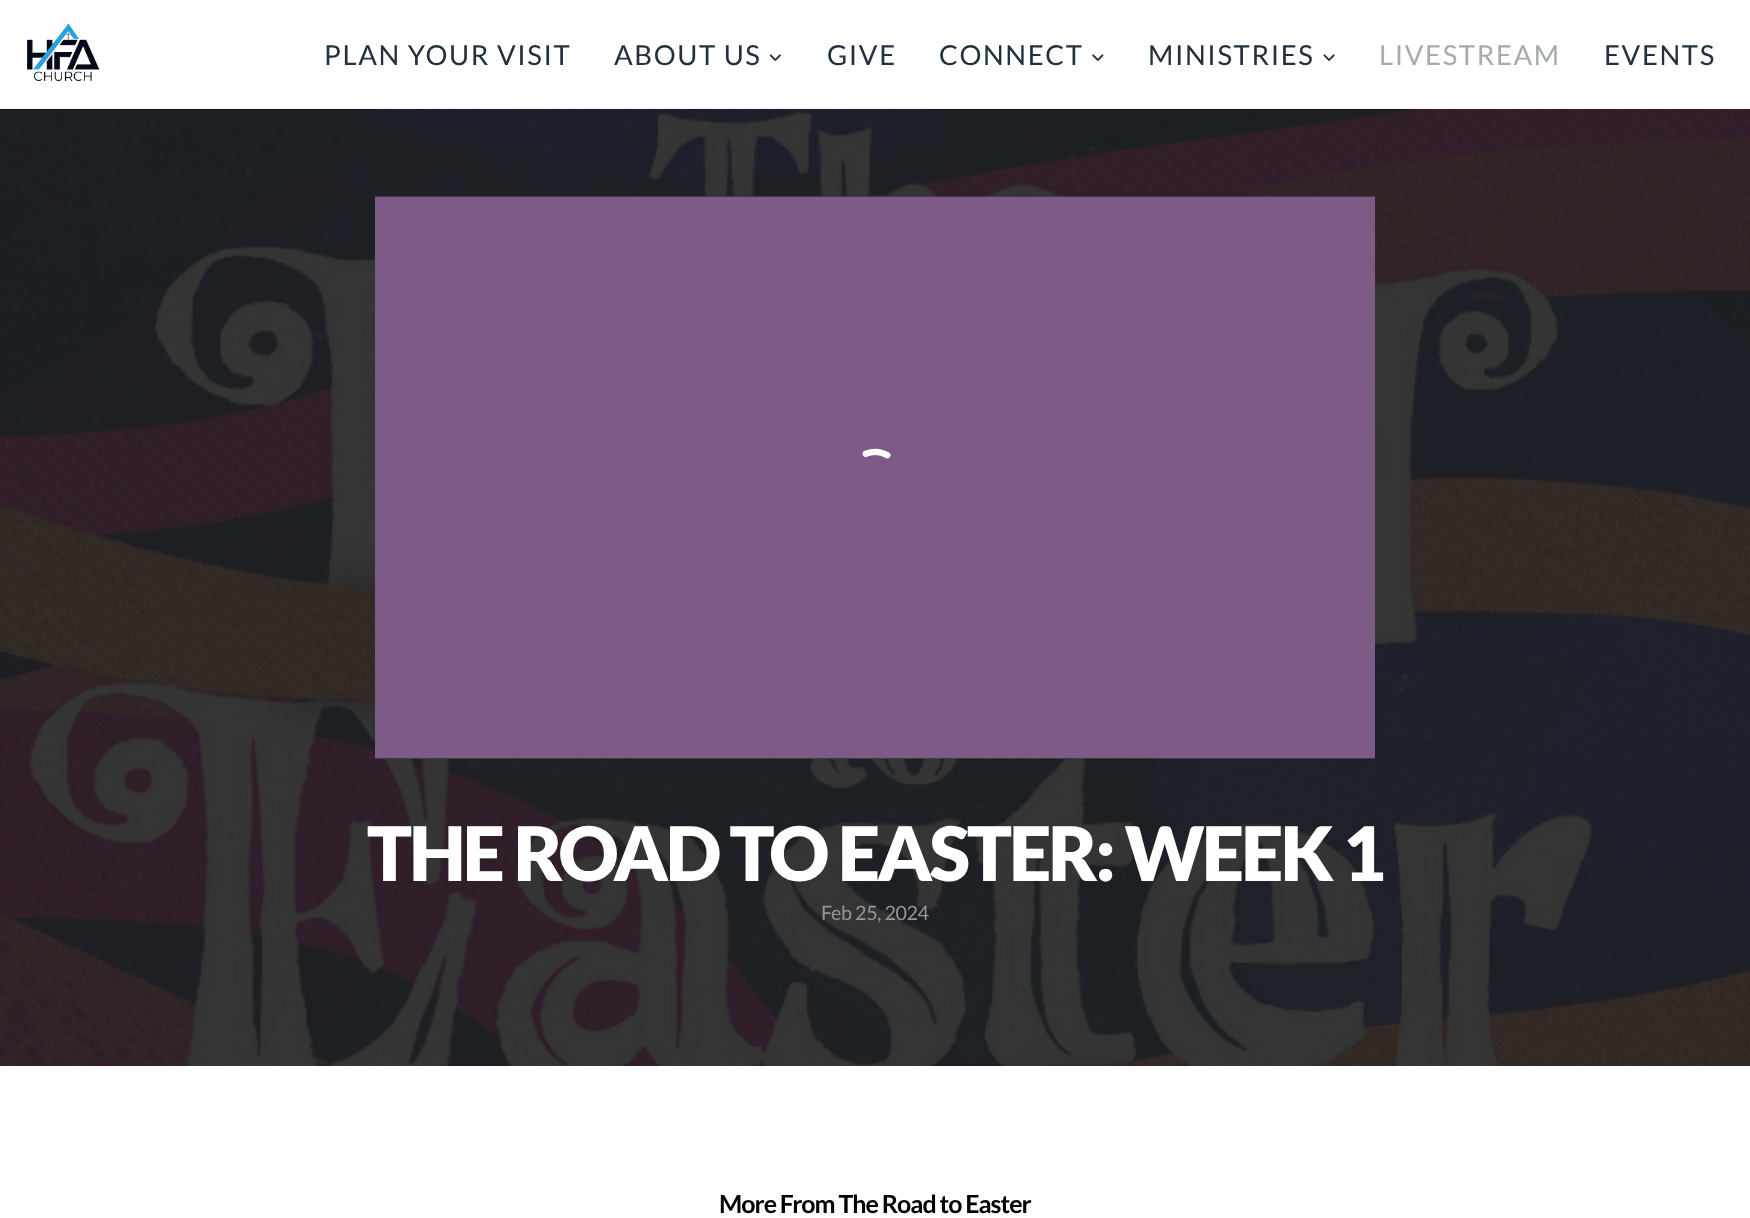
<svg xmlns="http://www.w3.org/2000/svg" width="1750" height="1218">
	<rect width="100%" height="100%" fill="#FFFFFF" />
	<image x="27" y="23" width="73" height="59" href="assets/img1.png" />
	<g font-family="Lato" font-size="27.5" letter-spacing="1.6" fill="#22313F">
		<text x="324" y="65">PLAN YOUR VISIT</text>
		<text x="614" y="65">ABOUT US</text>
	</g>
	<image x="769" y="54" width="12" height="7" href="assets/img2.png" />
	<g font-family="Lato" font-size="27.5" letter-spacing="1.6" fill="#22313F">
		<text x="827" y="65">GIVE</text>
		<text x="939" y="65">CONNECT</text>
	</g>
	<image x="1092" y="54" width="12" height="7" href="assets/img3.png" />
	<text x="1148" y="65" font-family="Lato" font-size="27.5" letter-spacing="1.6" fill="#22313F">MINISTRIES</text>
	<image x="1323" y="54" width="12" height="7" href="assets/img4.png" />
	<text x="1379" y="65" font-family="Lato" font-size="27.5" letter-spacing="1.6" fill="#A6ABAC">LIVESTREAM</text>
	<text x="1604" y="65" font-family="Lato" font-size="27.5" letter-spacing="1.6" fill="#22313F">EVENTS</text>
	<image x="0" y="108" width="1750" height="958" href="assets/img5.png" />
	<image x="375" y="196" width="1000" height="563" href="assets/img6.png" />
	<text x="367" y="881" font-family="Lato" font-size="75" font-weight="900" letter-spacing="-3" fill="#FFFFFF">THE ROAD TO EASTER: WEEK 1</text>
	<text x="821" y="920" font-family="Lato" font-size="19.75" letter-spacing="-0.4" fill="#959697">Feb 25, 2024</text>
	<text x="719" y="1213" font-family="Lato" font-size="25" font-weight="700" letter-spacing="-1" fill="#000000">More From The Road to Easter</text>
</svg>
